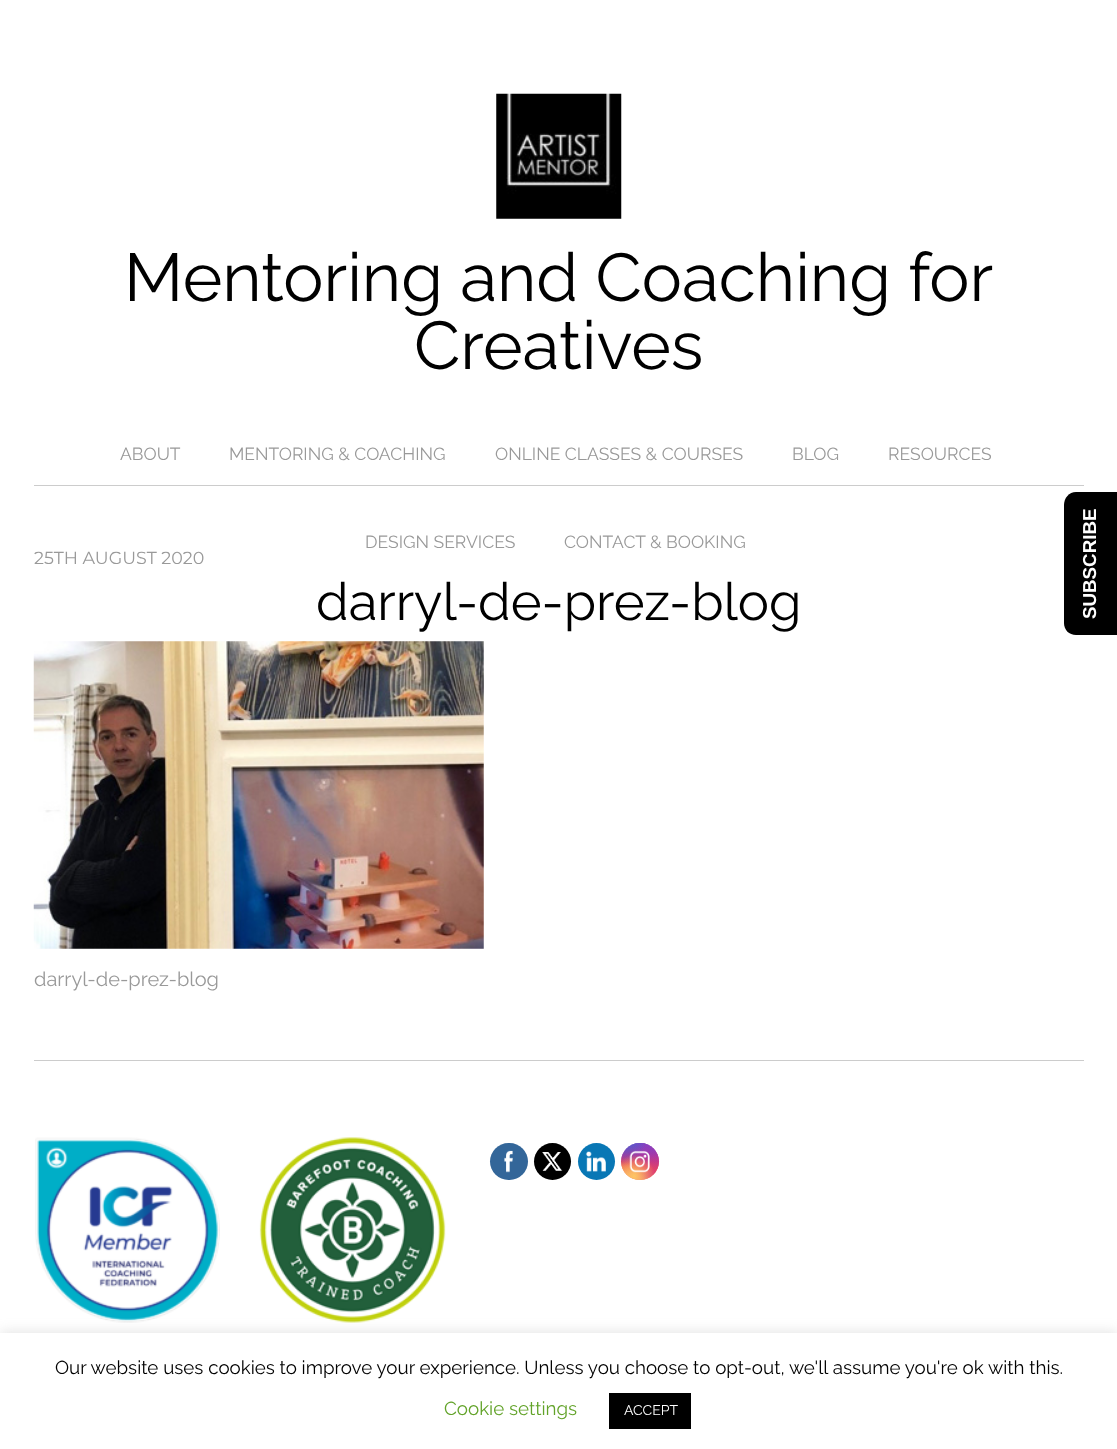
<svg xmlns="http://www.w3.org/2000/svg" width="1117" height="1449">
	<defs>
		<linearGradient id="g1" gradientUnits="userSpaceOnUse" x1="640" y1="1143" x2="640" y2="1180"><stop offset="0" stop-color="#6559CA" /><stop offset="0.3" stop-color="#BC318F" /><stop offset="0.5" stop-color="#E33F5F" /><stop offset="0.7" stop-color="#F77638" /><stop offset="1" stop-color="#FEC66D" /></linearGradient>
		<radialGradient id="g2" gradientUnits="userSpaceOnUse" cx="659" cy="1180" r="53"><stop offset="0" stop-color="#D9317A" /><stop offset="1" stop-color="#D9317A" stop-opacity="0" /></radialGradient>
		<radialGradient id="g3" gradientUnits="userSpaceOnUse" cx="0" cy="0" r="1" gradientTransform="matrix(32 0 0 64 644 1135)"><stop offset="0" stop-color="#893DC2" /><stop offset="0.5" stop-color="#893DC2" stop-opacity="0" /></radialGradient>
		<radialGradient id="g4" gradientUnits="userSpaceOnUse" cx="659" cy="1143" r="53"><stop offset="0" stop-color="#893DC2" /><stop offset="0.5" stop-color="#893DC2" stop-opacity="0" /></radialGradient>
		<radialGradient id="g5" gradientUnits="userSpaceOnUse" cx="0" cy="0" r="1" gradientTransform="matrix(42 0 0 80 629 1124)"><stop offset="0" stop-color="#5258CF" /><stop offset="0.5" stop-color="#5258CF" stop-opacity="0" /></radialGradient>
		<radialGradient id="g6" gradientUnits="userSpaceOnUse" cx="0" cy="0" r="1" gradientTransform="matrix(53 0 0 66 621 1133)"><stop offset="0" stop-color="#5258CF" /><stop offset="0.5" stop-color="#5258CF" stop-opacity="0" /></radialGradient>
		<radialGradient id="g7" gradientUnits="userSpaceOnUse" cx="621" cy="1195" r="65"><stop offset="0" stop-color="#FEC564" /><stop offset="0.5" stop-color="#FEC564" stop-opacity="0" /></radialGradient>
		<radialGradient id="g8" gradientUnits="userSpaceOnUse" cx="634" cy="1176" r="42"><stop offset="0" stop-color="#FEC564" /><stop offset="0.5" stop-color="#FEC564" stop-opacity="0" /></radialGradient>
	</defs>
	<rect width="100%" height="100%" fill="#FFFFFF" />
	<rect x="34" y="485" width="1050" height="1" fill="#CCCCCC" />
	<image x="496" y="93" width="126" height="126" href="assets/img1.png" />
	<g font-family="Raleway" font-size="67.5" font-weight="100" fill="#000000">
		<text x="124" y="301">Mentoring and Coaching for</text>
		<text x="414" y="369">Creatives</text>
	</g>
	<g font-family="Raleway" font-size="17.5" font-weight="100" fill="#999999">
		<text x="120" y="460">ABOUT</text>
		<text x="229" y="460">MENTORING &amp; COACHING</text>
		<text x="495" y="460">ONLINE CLASSES &amp; COURSES</text>
		<text x="792" y="460">BLOG</text>
		<text x="888" y="460">RESOURCES</text>
		<text x="365" y="548">DESIGN SERVICES</text>
		<text x="564" y="548">CONTACT &amp; BOOKING</text>
	</g>
	<text x="34" y="564" font-family="Montserrat" font-size="17.5" fill="#999999">25TH AUGUST 2020</text>
	<text x="316" y="620" font-family="Raleway" font-size="52.5" font-weight="100" fill="#000000">darryl-de-prez-blog</text>
	<image x="33" y="641" width="451" height="308" href="assets/img2.png" />
	<text x="34" y="986" font-family="Raleway" font-size="20" font-weight="100" fill="#999999">darryl-de-prez-blog</text>
	<rect x="34" y="1060" width="1050" height="1" fill="#CCCCCC" />
	<image x="35" y="1137" width="185" height="186" href="assets/img3.png" />
	<image x="259" y="1137" width="187" height="186" href="assets/img4.png" />
	<rect x="490" y="1143" width="38" height="37" rx="18.5" fill="#336699" />
	<image x="504" y="1150" width="9" height="23" href="assets/img5.png" />
	<circle cx="552.5" cy="1161.5" r="18.5" fill="#000000" />
	<image x="542" y="1152" width="21" height="19" href="assets/img6.png" />
	<circle cx="596.5" cy="1161.5" r="18.5" fill="#0877B5" />
	<image x="585" y="1151" width="21" height="21" href="assets/img7.png" />
	<rect x="621" y="1143" width="38" height="37" rx="18.5" fill="url(#g1)" />
	<rect x="621" y="1143" width="38" height="37" rx="18.5" fill="url(#g2)" />
	<rect x="621" y="1143" width="38" height="37" rx="18.5" fill="url(#g3)" />
	<rect x="621" y="1143" width="38" height="37" rx="18.5" fill="url(#g4)" />
	<rect x="621" y="1143" width="38" height="37" rx="18.5" fill="url(#g5)" />
	<rect x="621" y="1143" width="38" height="37" rx="18.5" fill="url(#g6)" />
	<rect x="621" y="1143" width="38" height="37" rx="18.5" fill="url(#g7)" />
	<rect x="621" y="1143" width="38" height="37" rx="18.5" fill="url(#g8)" />
	<image x="629" y="1150" width="21" height="23" href="assets/img8.png" />
	<path d="M1064 623V505C1064 498 1069 492 1076 492H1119V635H1076C1069 635 1064 630 1064 623Z" fill="#000000" />
	<text x="1096" y="619" transform="rotate(-90 1096 619)" font-family="Liberation Sans" font-size="18.75" font-weight="700" fill="#FFFFFF">SUBSCRIBE</text>
	<rect x="0" y="1331" width="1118" height="118" fill="#ACABAB" fill-opacity="0.3" filter="blur(6px)" />
	<rect x="0" y="1333" width="1117" height="116" fill="#FFFFFF" />
	<text x="55" y="1374" font-family="Raleway" font-size="18.75" font-weight="100" fill="#000000">Our website uses cookies to improve your experience. Unless you choose to opt-out, we'll assume you're ok with this.</text>
	<text x="444" y="1415" font-family="Raleway" font-size="18.75" font-weight="100" fill="#62A329">Cookie settings</text>
	<rect x="609" y="1393" width="82" height="36" fill="#000000" />
	<text x="624" y="1415" font-family="Raleway" font-size="14" font-weight="100" fill="#FFFFFF">ACCEPT</text>
</svg>
